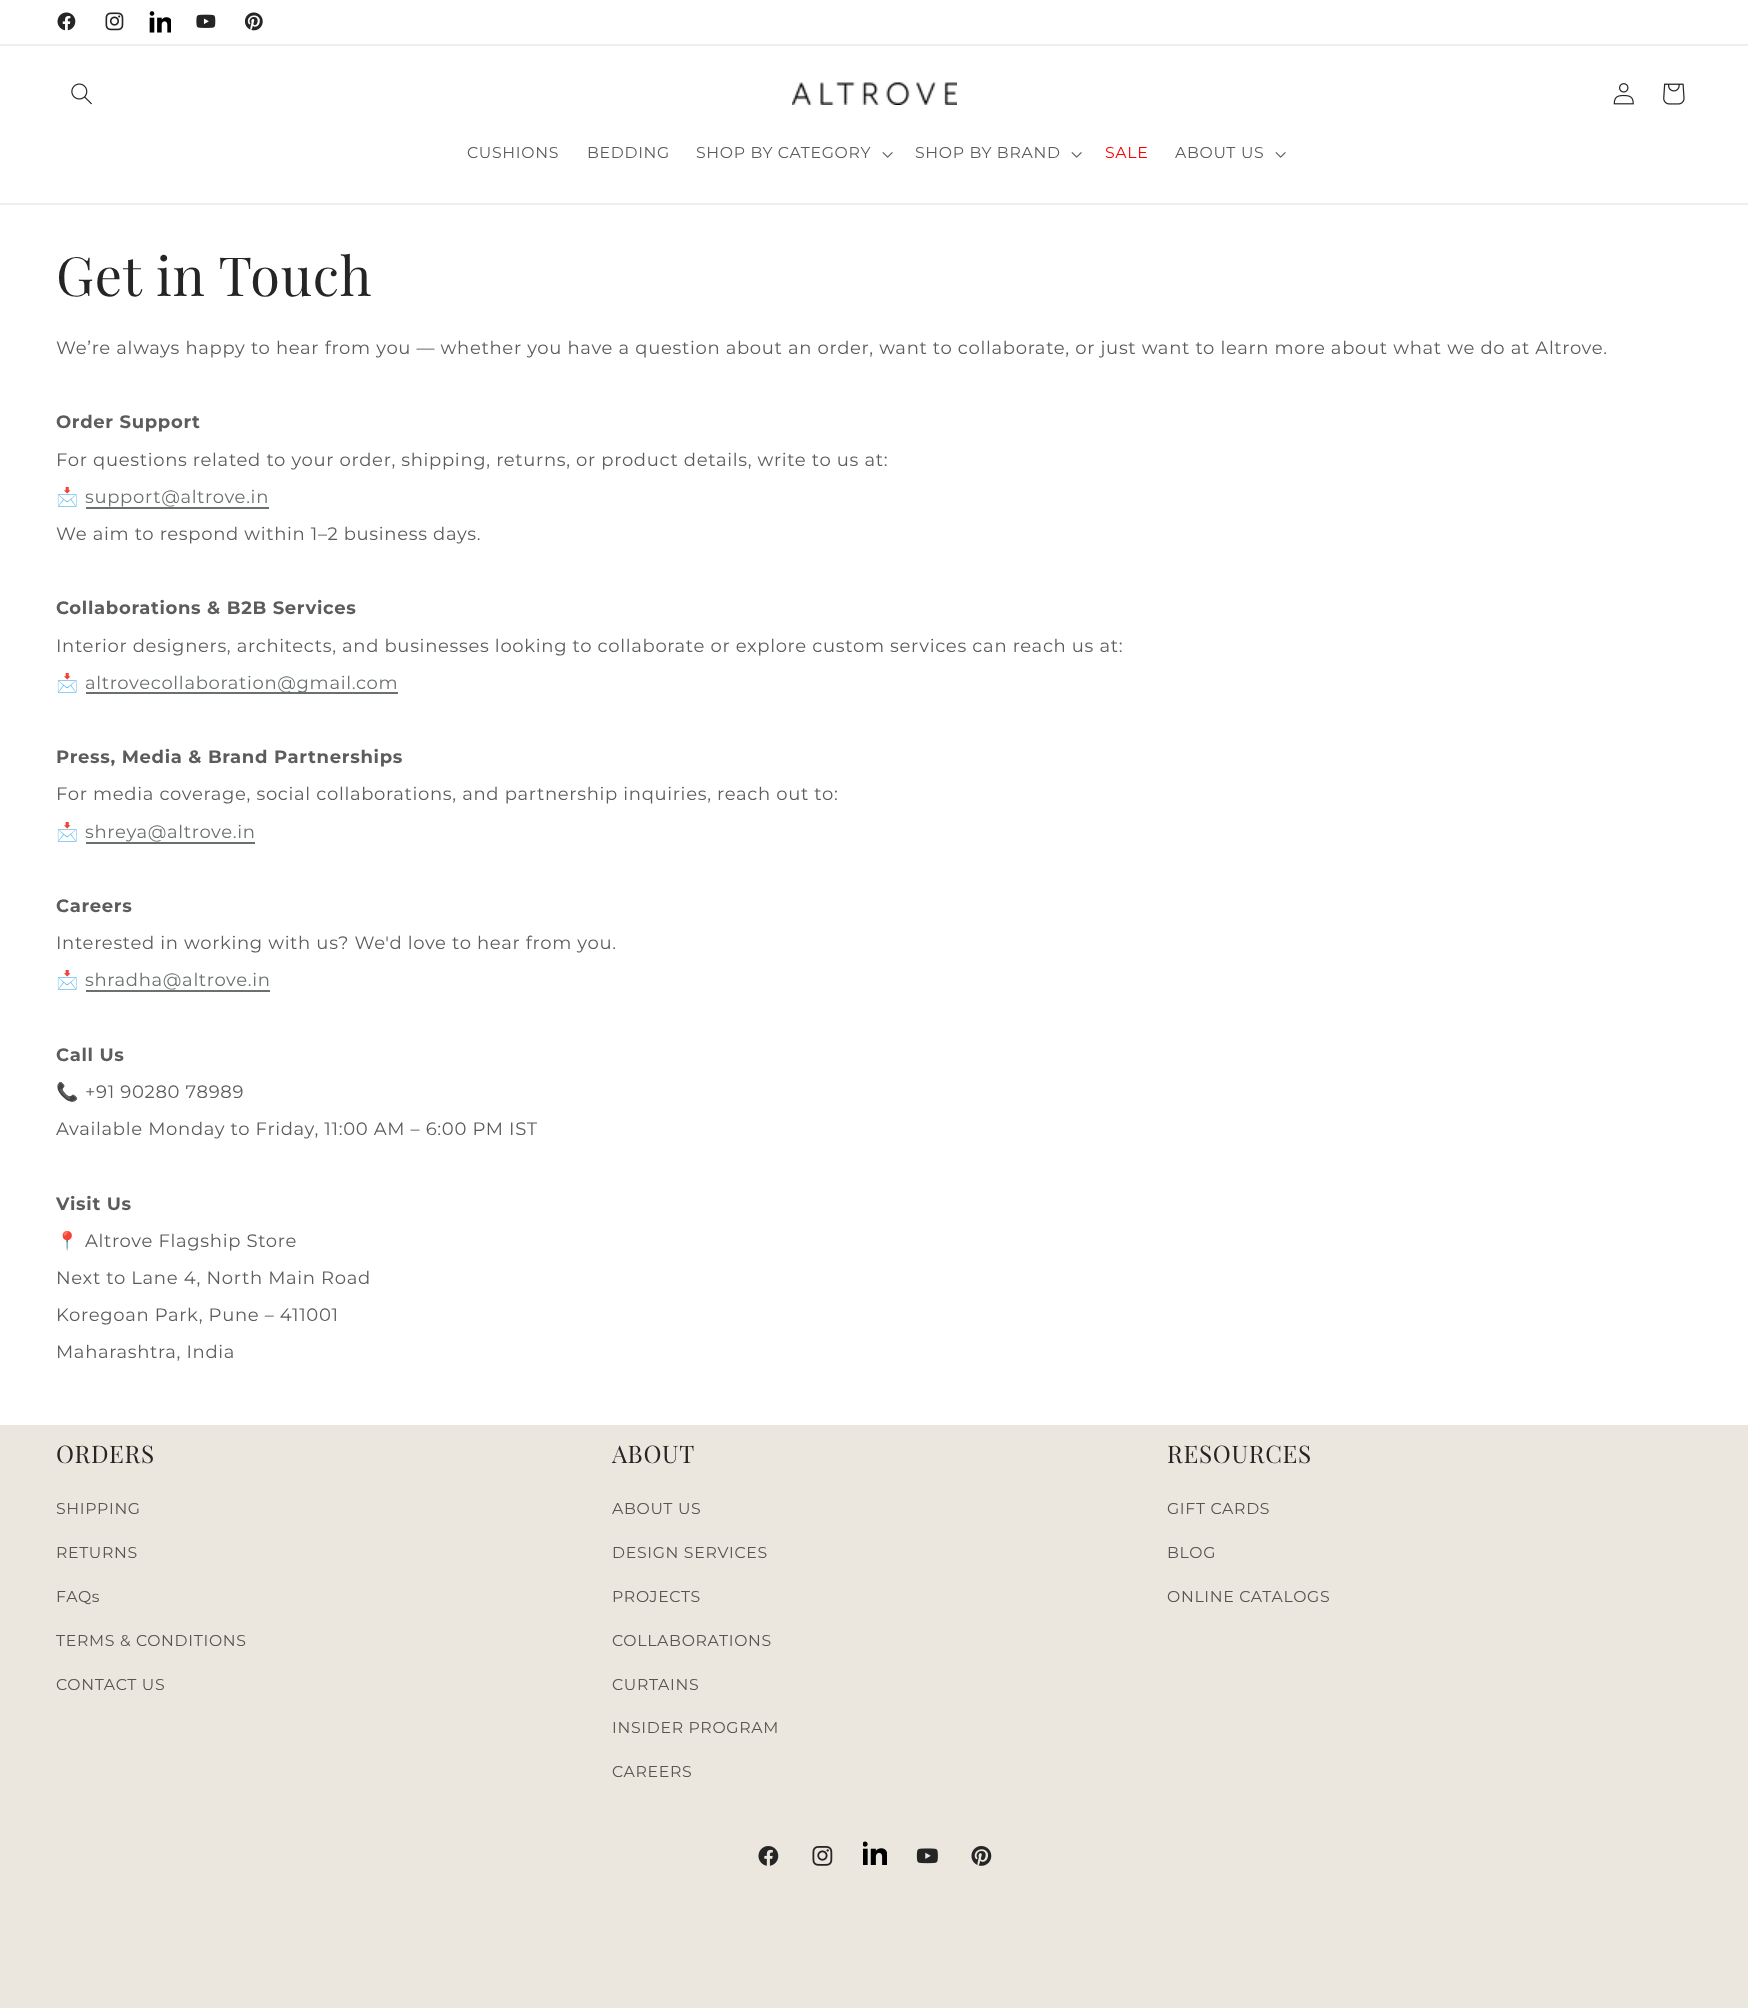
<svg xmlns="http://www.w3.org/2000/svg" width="1748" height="2008">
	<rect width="100%" height="100%" fill="#FFFFFF" />
	<rect x="0" y="44" width="1748" height="2" fill="#EEEEEE" />
	<image x="57" y="12" width="19" height="19" href="assets/img1.png" />
	<image x="105" y="12" width="19" height="19" href="assets/img2.png" />
	<image x="149" y="11" width="22" height="22" href="assets/img3.png" />
	<image x="196" y="14" width="20" height="14" href="assets/img4.png" />
	<image x="244" y="12" width="19" height="19" href="assets/img5.png" />
	<rect x="0" y="203" width="1748" height="2" fill="#EEEEEE" />
	<image x="71" y="83" width="21" height="22" href="assets/img6.png" />
	<image x="792" y="82" width="165" height="23" href="assets/img7.png" />
	<image x="1613" y="83" width="21" height="22" href="assets/img8.png" />
	<image x="1663" y="83" width="22" height="22" href="assets/img9.png" />
	<g font-family="Montserrat" font-size="15.75" letter-spacing="0.68" fill="#5C5C5C">
		<text x="467" y="158">CUSHIONS</text>
		<text x="587" y="158">BEDDING</text>
		<text x="696" y="158">SHOP BY CATEGORY</text>
	</g>
	<image x="882" y="152" width="11" height="6" href="assets/img10.png" />
	<text x="915" y="158" font-family="Montserrat" font-size="15.75" letter-spacing="0.68" fill="#5C5C5C">SHOP BY BRAND</text>
	<image x="1071" y="152" width="11" height="6" href="assets/img10.png" />
	<text x="1105" y="158" font-family="Montserrat" font-size="15.75" letter-spacing="0.68" fill="#FF0000">SALE</text>
	<text x="1175" y="158" font-family="Montserrat" font-size="15.75" letter-spacing="0.68" fill="#5C5C5C">ABOUT US</text>
	<image x="1275" y="152" width="11" height="6" href="assets/img10.png" />
	<text x="56" y="296" font-family="Playfair Display" font-size="54" letter-spacing="0.75" fill="#252525">Get in Touch</text>
	<text x="56" y="354" font-family="Montserrat" font-size="18" letter-spacing="0.68" fill="#5C5C5C">We’re always happy to hear from you — whether you have a question about an order, want to collaborate, or just want to learn more about what we do at Altrove.</text>
	<text x="56" y="428" font-family="Montserrat" font-size="18" font-weight="700" letter-spacing="0.68" fill="#5C5C5C">Order Support</text>
	<text x="56" y="466" font-family="Montserrat" font-size="18" letter-spacing="0.68" fill="#5C5C5C">For questions related to your order, shipping, returns, or product details, write to us at:</text>
	<text x="56" y="503" font-family="Noto Color Emoji" font-size="18" letter-spacing="0.68" fill="#5C5C5C">📩</text>
	<text x="85" y="503" font-family="Montserrat" font-size="18" letter-spacing="0.68" fill="#6A6F6F">support@altrove.in</text>
	<rect x="86" y="507" width="183" height="2" fill="#6A6F6F" />
	<text x="56" y="540" font-family="Montserrat" font-size="18" letter-spacing="0.68" fill="#5C5C5C">We aim to respond within 1–2 business days.</text>
	<text x="56" y="614" font-family="Montserrat" font-size="18" font-weight="700" letter-spacing="0.68" fill="#5C5C5C">Collaborations &amp; B2B Services</text>
	<text x="56" y="652" font-family="Montserrat" font-size="18" letter-spacing="0.68" fill="#5C5C5C">Interior designers, architects, and businesses looking to collaborate or explore custom services can reach us at:</text>
	<text x="56" y="689" font-family="Noto Color Emoji" font-size="18" letter-spacing="0.68" fill="#5C5C5C">📩</text>
	<rect x="86" y="692" width="312" height="2" fill="#6A6F6F" />
	<text x="85" y="689" font-family="Montserrat" font-size="18" letter-spacing="0.68" fill="#6A6F6F">altrovecollaboration@gmail.com</text>
	<text x="56" y="763" font-family="Montserrat" font-size="18" font-weight="700" letter-spacing="0.68" fill="#5C5C5C">Press, Media &amp; Brand Partnerships</text>
	<text x="56" y="800" font-family="Montserrat" font-size="18" letter-spacing="0.68" fill="#5C5C5C">For media coverage, social collaborations, and partnership inquiries, reach out to:</text>
	<text x="56" y="838" font-family="Noto Color Emoji" font-size="18" letter-spacing="0.68" fill="#5C5C5C">📩</text>
	<text x="85" y="838" font-family="Montserrat" font-size="18" letter-spacing="0.68" fill="#6A6F6F">shreya@altrove.in</text>
	<rect x="86" y="842" width="169" height="2" fill="#6A6F6F" />
	<text x="56" y="912" font-family="Montserrat" font-size="18" font-weight="700" letter-spacing="0.68" fill="#5C5C5C">Careers</text>
	<text x="56" y="949" font-family="Montserrat" font-size="18" letter-spacing="0.68" fill="#5C5C5C">Interested in working with us? We'd love to hear from you.</text>
	<text x="56" y="986" font-family="Noto Color Emoji" font-size="18" letter-spacing="0.68" fill="#5C5C5C">📩</text>
	<text x="85" y="986" font-family="Montserrat" font-size="18" letter-spacing="0.68" fill="#6A6F6F">shradha@altrove.in</text>
	<rect x="86" y="990" width="184" height="2" fill="#6A6F6F" />
	<text x="56" y="1061" font-family="Montserrat" font-size="18" font-weight="700" letter-spacing="0.68" fill="#5C5C5C">Call Us</text>
	<text x="56" y="1098" font-family="Noto Color Emoji" font-size="18" letter-spacing="0.68" fill="#5C5C5C">📞</text>
	<g font-family="Montserrat" font-size="18" letter-spacing="0.68" fill="#5C5C5C">
		<text x="85" y="1098">+91 90280 78989</text>
		<text x="56" y="1135">Available Monday to Friday, 11:00 AM – 6:00 PM IST</text>
	</g>
	<text x="56" y="1210" font-family="Montserrat" font-size="18" font-weight="700" letter-spacing="0.68" fill="#5C5C5C">Visit Us</text>
	<text x="56" y="1247" font-family="Noto Color Emoji" font-size="18" letter-spacing="0.68" fill="#5C5C5C">📍</text>
	<g font-family="Montserrat" font-size="18" letter-spacing="0.68" fill="#5C5C5C">
		<text x="85" y="1247">Altrove Flagship Store</text>
		<text x="56" y="1284">Next to Lane 4, North Main Road</text>
		<text x="56" y="1321">Koregoan Park, Pune – 411001</text>
		<text x="56" y="1358">Maharashtra, India</text>
	</g>
	<rect x="0" y="1425" width="1748" height="583" fill="#EBE6DE" />
	<text x="56" y="1463" font-family="Playfair Display" font-size="24.25" letter-spacing="0.75" fill="#252525">ORDERS</text>
	<g font-family="Montserrat" font-size="15.75" letter-spacing="0.68" fill="#575553">
		<text x="56" y="1514">SHIPPING</text>
		<text x="56" y="1558">RETURNS</text>
		<text x="56" y="1602">FAQs</text>
		<text x="56" y="1646">TERMS &amp; CONDITIONS</text>
		<text x="56" y="1690">CONTACT US</text>
	</g>
	<text x="612" y="1463" font-family="Playfair Display" font-size="24.25" letter-spacing="0.75" fill="#252525">ABOUT</text>
	<g font-family="Montserrat" font-size="15.75" letter-spacing="0.68" fill="#575553">
		<text x="612" y="1514">ABOUT US</text>
		<text x="612" y="1558">DESIGN SERVICES</text>
		<text x="612" y="1602">PROJECTS</text>
		<text x="612" y="1646">COLLABORATIONS</text>
		<text x="612" y="1690">CURTAINS</text>
		<text x="612" y="1733">INSIDER PROGRAM</text>
		<text x="612" y="1777">CAREERS</text>
	</g>
	<text x="1167" y="1463" font-family="Playfair Display" font-size="24.25" letter-spacing="0.75" fill="#252525">RESOURCES</text>
	<g font-family="Montserrat" font-size="15.75" letter-spacing="0.68" fill="#575553">
		<text x="1167" y="1514">GIFT CARDS</text>
		<text x="1167" y="1558">BLOG</text>
		<text x="1167" y="1602">ONLINE CATALOGS</text>
	</g>
	<image x="758" y="1846" width="21" height="20" href="assets/img11.png" />
	<image x="812" y="1846" width="21" height="20" href="assets/img12.png" />
	<image x="863" y="1841" width="24" height="24" href="assets/img13.png" />
	<image x="916" y="1848" width="22" height="16" href="assets/img14.png" />
	<image x="971" y="1846" width="21" height="20" href="assets/img15.png" />
</svg>
